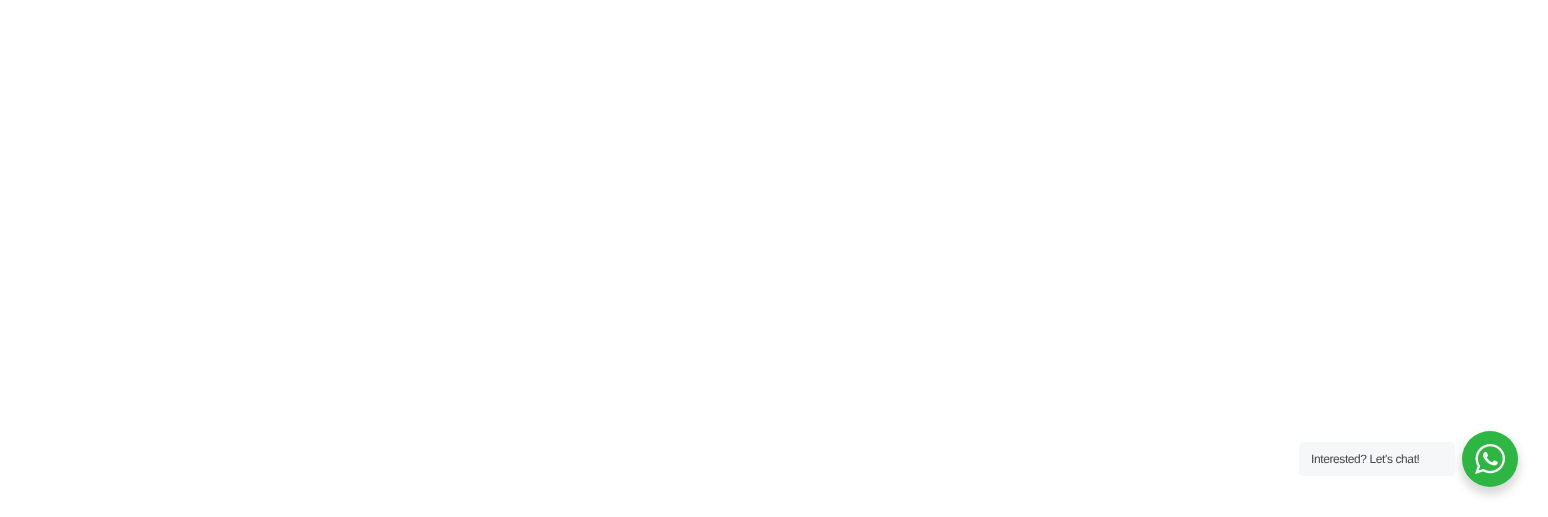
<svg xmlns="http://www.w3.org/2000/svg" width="1548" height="517">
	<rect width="100%" height="100%" fill="#FFFFFF" />
	<rect x="1460" y="435" width="60" height="60" rx="30" fill="#000000" fill-opacity="0.14" filter="blur(4px)" />
	<rect x="1299" y="442" width="156" height="34" rx="4" fill="#F5F7F9" />
	<text x="1311" y="463" font-family="Liberation Sans" font-size="12" letter-spacing="-0.4" fill="#43474E">Interested? Let's chat!</text>
	<circle cx="1490" cy="459" r="28" fill="#2DB742" />
	<image x="1475" y="444" width="30" height="30" href="assets/img1.png" />
</svg>
